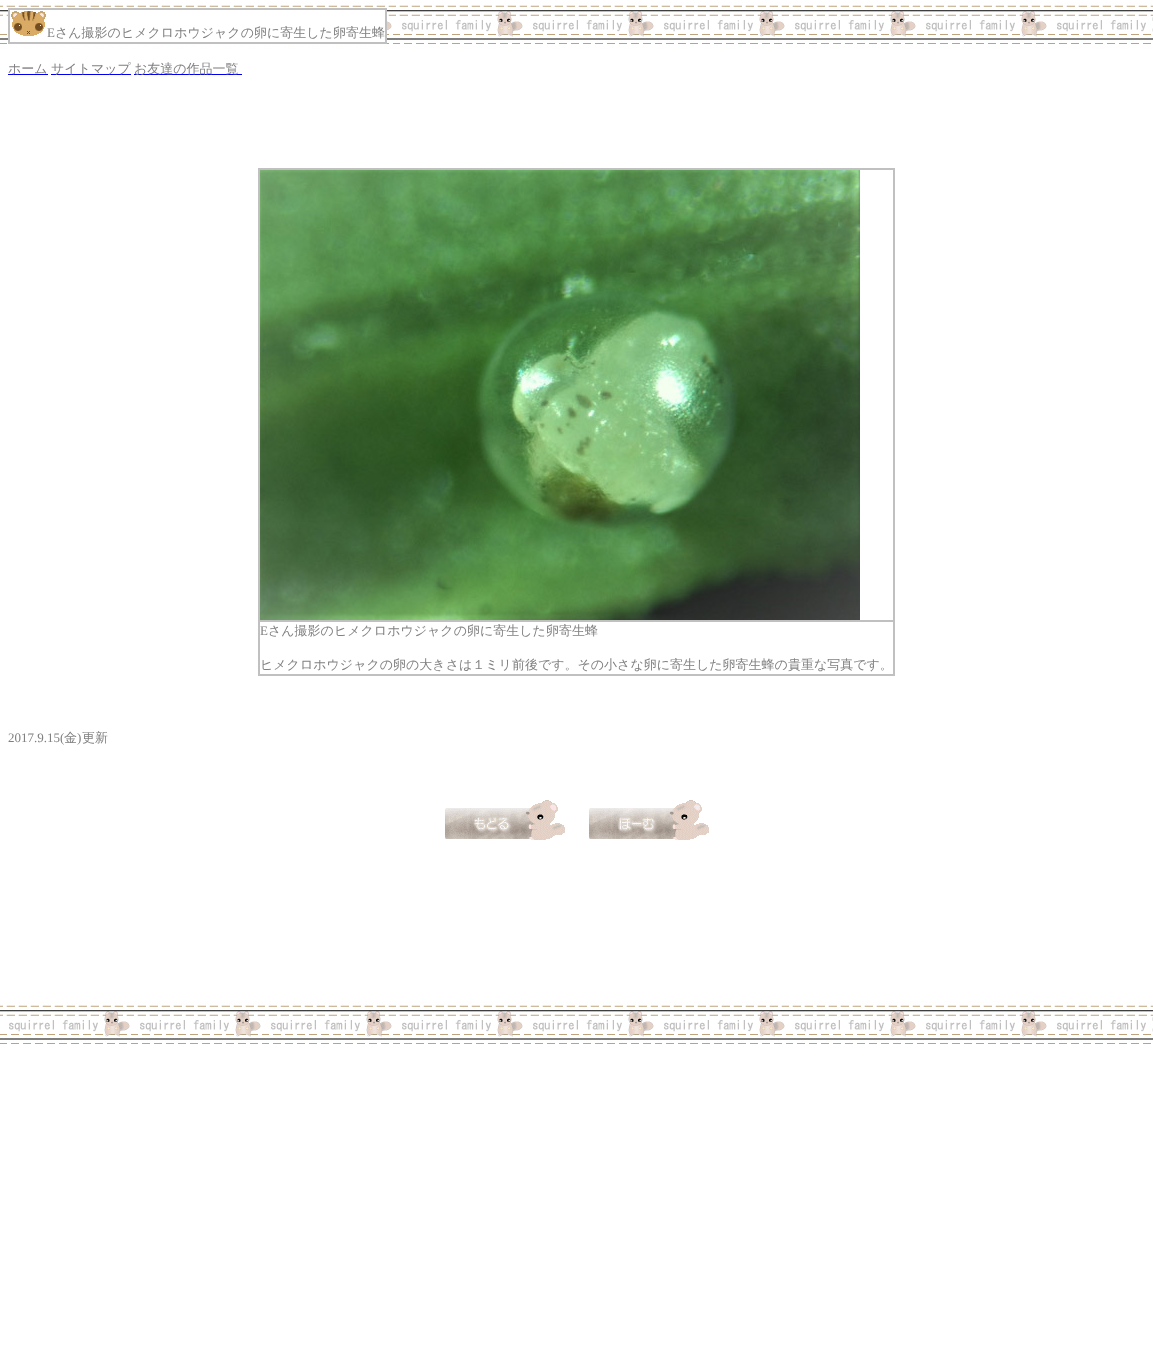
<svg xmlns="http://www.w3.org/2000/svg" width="1153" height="1372">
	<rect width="100%" height="100%" fill="#FFFFFF" />
	<image x="0" y="5" width="1153" height="1039" href="assets/img1.png" />
	<rect x="8" y="8" width="379" height="36" fill="#C0C0C0" />
	<rect x="10" y="10" width="375" height="32" fill="#FFFFFF" />
	<image x="11" y="11" width="35" height="25" href="assets/img2.png" />
	<text x="47" y="37" font-family="Liberation Serif" font-size="13" fill="#808080">E</text>
	<text x="55" y="37" font-family="WenQuanYi Zen Hei" font-size="13" font-weight="500" fill="#808080">さん撮影のヒメクロホウジャクの卵に寄生した卵寄生蜂</text>
	<rect x="8" y="74" width="40" height="1" fill="#0000EE" />
	<text x="8" y="73" font-family="WenQuanYi Zen Hei" font-size="13" font-weight="500" fill="#808080">ホーム</text>
	<rect x="51" y="74" width="80" height="1" fill="#0000EE" />
	<text x="51" y="73" font-family="WenQuanYi Zen Hei" font-size="13" font-weight="500" fill="#808080">サイトマップ</text>
	<rect x="134" y="74" width="108" height="1" fill="#0000EE" />
	<text x="134" y="73" font-family="WenQuanYi Zen Hei" font-size="13" font-weight="500" fill="#808080">お友達の作品一覧</text>
	<rect x="258.5" y="168.5" width="636" height="507" fill="none" stroke="#C0C0C0" />
	<rect x="259.5" y="169.5" width="634" height="451" fill="none" stroke="#C0C0C0" />
	<image x="260" y="170" width="600" height="450" href="assets/img3.png" />
	<rect x="259.5" y="621.5" width="634" height="53" fill="none" stroke="#C0C0C0" />
	<text x="260" y="635" font-family="Liberation Serif" font-size="13" fill="#808080">E</text>
	<g font-family="WenQuanYi Zen Hei" font-size="13" font-weight="500" fill="#808080">
		<text x="268" y="635">さん撮影のヒメクロホウジャクの卵に寄生した卵寄生蜂</text>
		<text x="260" y="669">ヒメクロホウジャクの卵の大きさは１ミリ前後です。その小さな卵に寄生した卵寄生蜂の貴重な写真です。</text>
	</g>
	<text x="8" y="742" font-family="Liberation Serif" font-size="13" fill="#808080">2017.9.15(</text>
	<text x="64" y="742" font-family="WenQuanYi Zen Hei" font-size="13" font-weight="500" fill="#808080">金</text>
	<text x="77" y="742" font-family="Liberation Serif" font-size="13" fill="#808080">)</text>
	<text x="82" y="742" font-family="WenQuanYi Zen Hei" font-size="13" font-weight="500" fill="#808080">更新</text>
	<image x="445" y="800" width="120" height="40" href="assets/img4.png" />
	<image x="589" y="800" width="120" height="40" href="assets/img5.png" />
</svg>
